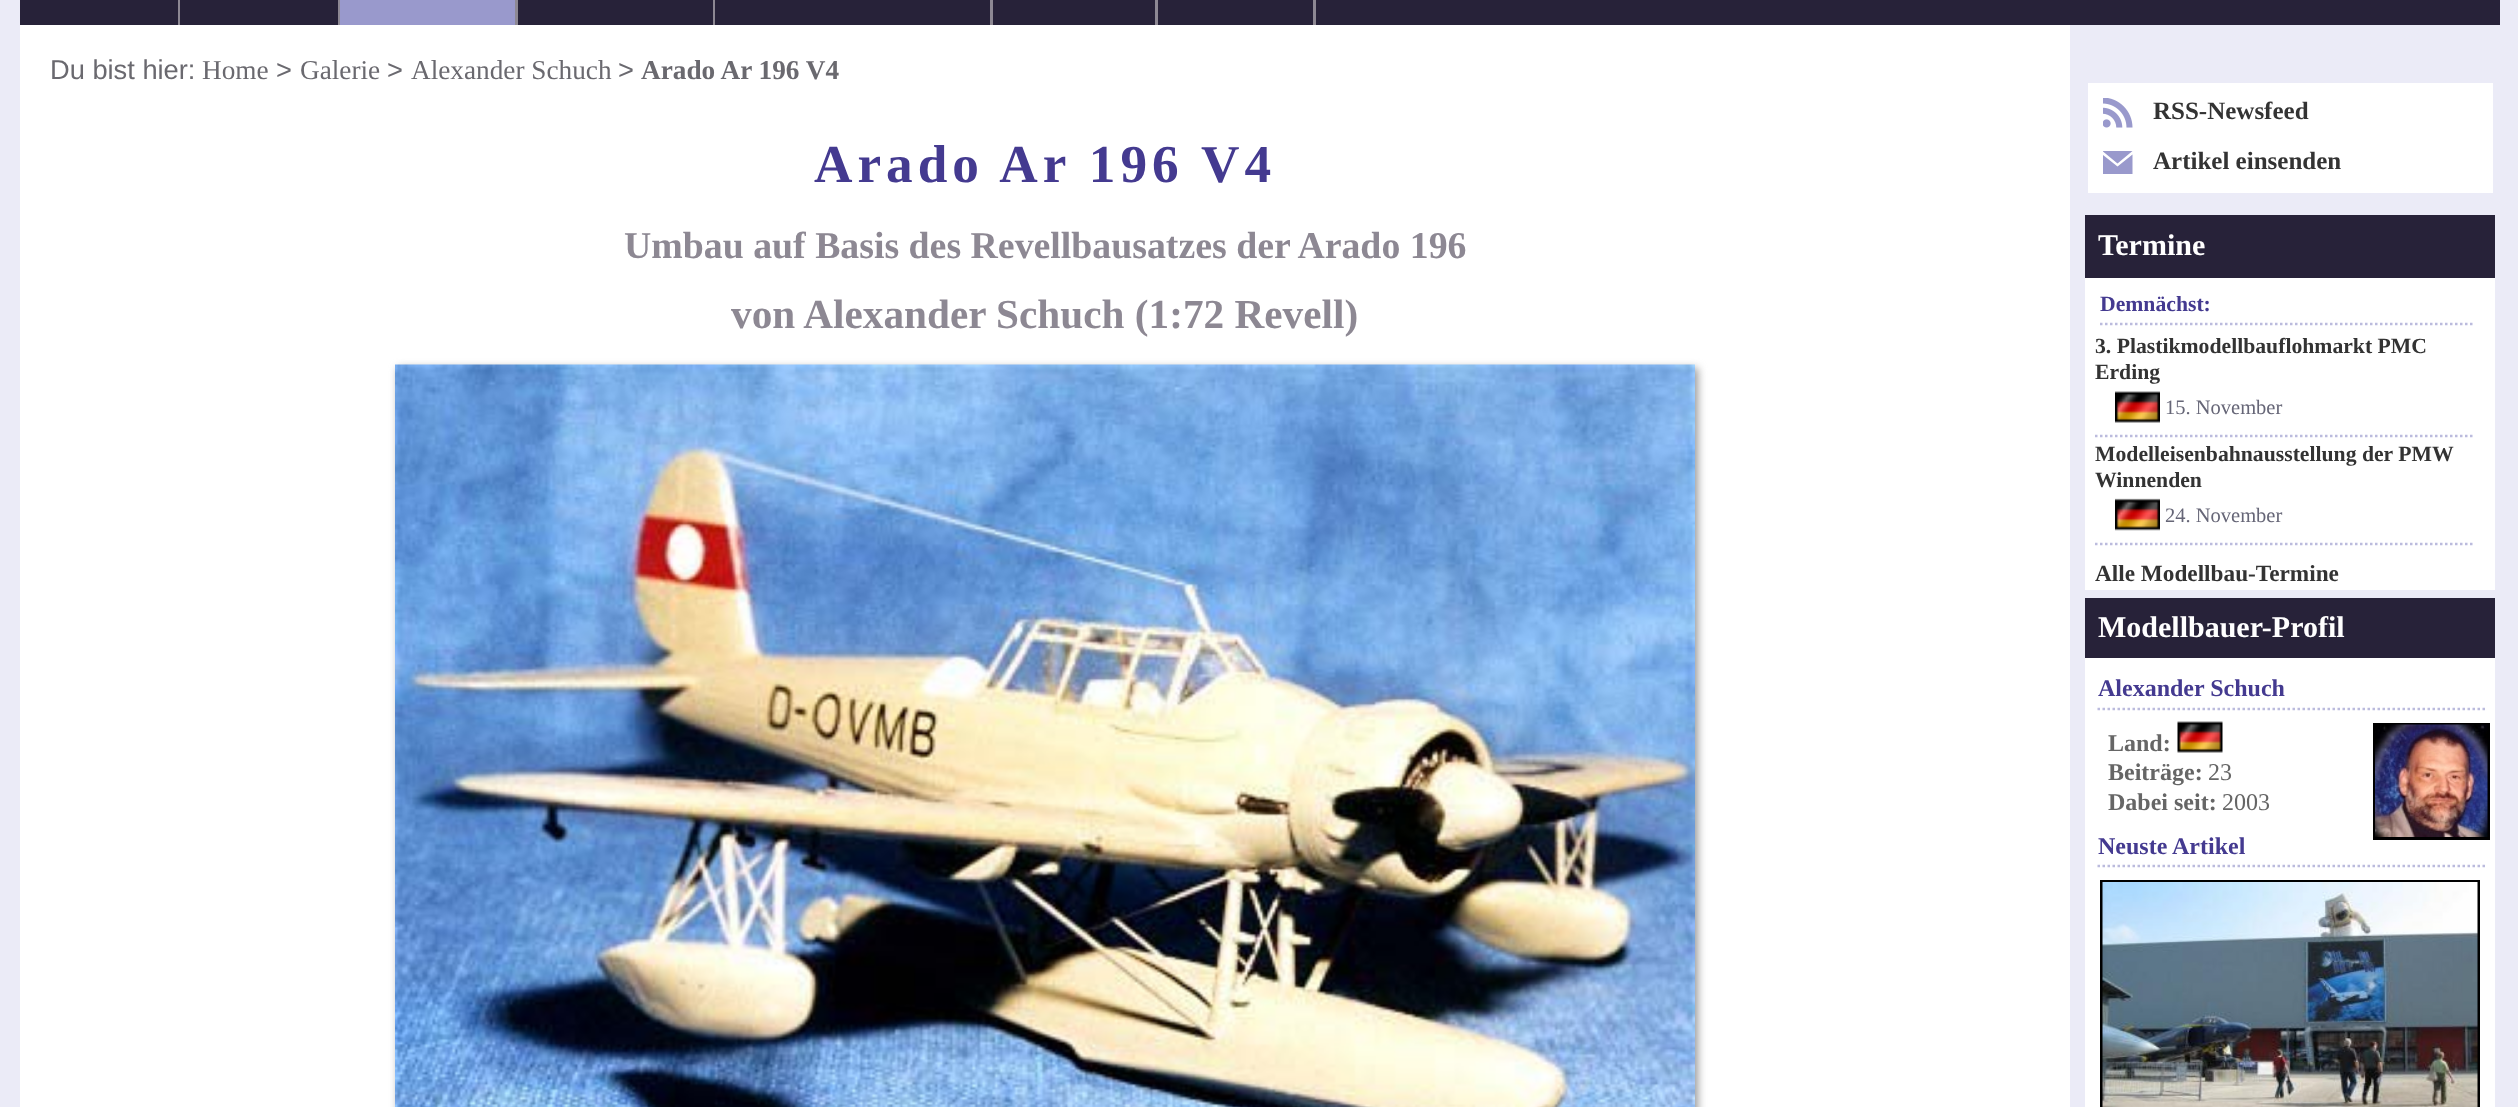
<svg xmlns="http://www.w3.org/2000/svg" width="2518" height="1107">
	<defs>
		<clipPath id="clip1"><rect x="2103" y="148" width="30" height="30" /></clipPath>
	</defs>
	<rect width="100%" height="100%" fill="#EBEBF7" />
	<rect x="20" y="0" width="2480" height="25" fill="#272239" />
	<rect x="178" y="0" width="2" height="25" fill="#8D8893" />
	<rect x="338" y="0" width="2" height="25" fill="#8D8893" />
	<rect x="340" y="0" width="175" height="25" fill="#9999CC" />
	<rect x="515" y="0" width="3" height="25" fill="#8D8893" />
	<rect x="713" y="0" width="2" height="25" fill="#8D8893" />
	<rect x="990" y="0" width="3" height="25" fill="#8D8893" />
	<rect x="1155" y="0" width="3" height="25" fill="#8D8893" />
	<rect x="1313" y="0" width="3" height="25" fill="#8D8893" />
	<rect x="20" y="25" width="2050" height="1082" fill="#FFFFFF" />
	<text x="50" y="79" font-family="Liberation Sans" font-size="27.25" fill="#6A696F">Du bist hier:</text>
	<text x="202" y="79" font-family="Liberation Serif" font-size="27.25" fill="#6A696F">Home</text>
	<text x="276" y="79" font-family="Liberation Sans" font-size="27.25" fill="#6A696F">&gt;</text>
	<text x="300" y="79" font-family="Liberation Serif" font-size="27.25" fill="#6A696F">Galerie</text>
	<text x="387" y="79" font-family="Liberation Sans" font-size="27.25" fill="#6A696F">&gt;</text>
	<text x="411" y="79" font-family="Liberation Serif" font-size="27.25" fill="#6A696F">Alexander Schuch</text>
	<text x="618" y="79" font-family="Liberation Sans" font-size="27.25" fill="#6A696F">&gt;</text>
	<text x="641" y="79" font-family="Liberation Serif" font-size="27.25" font-weight="700" fill="#6A696F">Arado Ar 196 V4</text>
	<text x="814" y="182" font-family="Liberation Serif" font-size="53.25" font-weight="700" letter-spacing="5" fill="#443A90">Arado Ar 196 V4</text>
	<text x="624" y="258" font-family="Liberation Serif" font-size="37.8" font-weight="700" fill="#8D8893">Umbau auf Basis des Revellbausatzes der Arado 196</text>
	<text x="731" y="328" font-family="Liberation Serif" font-size="41.25" font-weight="700" fill="#8D8893">von Alexander Schuch (1:72 Revell)</text>
	<rect x="398" y="368" width="1300" height="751" fill="#999999" filter="blur(4px)" />
	<image x="395" y="364" width="1300" height="743" href="assets/img1.png" />
	<rect x="2088" y="83" width="405" height="110" fill="#FFFFFF" />
	<image x="2103" y="98" width="30" height="30" href="assets/img2.png" />
	<text x="2153" y="119" font-family="Liberation Serif" font-size="25" font-weight="700" fill="#333333">RSS-Newsfeed</text>
	<g clip-path="url(#clip1)">
		<path d="M2117.5 163.5L2102.5 151H2132.5ZM2117.5 166.5L2102.5 154.5V174H2132.5V154.5Z" fill="#9999CC" />
	</g>
	<text x="2153" y="169" font-family="Liberation Serif" font-size="25" font-weight="700" fill="#333333">Artikel einsenden</text>
	<rect x="2085" y="278" width="410" height="312" fill="#FFFFFF" />
	<rect x="2085" y="215" width="410" height="63" fill="#272239" />
	<text x="2098" y="255" font-family="Liberation Serif" font-size="30" font-weight="700" fill="#FFFFFF">Termine</text>
	<path d="M2100 324H2475" fill="none" stroke="#BBBBDD" stroke-width="2.5" stroke-dasharray="2.5 2.5" />
	<text x="2100" y="311" font-family="Liberation Serif" font-size="21.7" font-weight="700" fill="#443A90">Demnächst:</text>
	<g font-family="Liberation Serif" font-size="21.7" font-weight="700" fill="#333333">
		<text x="2095" y="353">3. Plastikmodellbauflohmarkt PMC</text>
		<text x="2095" y="379">Erding</text>
	</g>
	<path d="M2095 436H2475" fill="none" stroke="#BBBBDD" stroke-width="2.5" stroke-dasharray="2.5 2.5" />
	<image x="2115" y="391" width="45" height="32" href="assets/img3.png" />
	<text x="2165" y="414" font-family="Liberation Serif" font-size="20.5" fill="#666677">15. November</text>
	<g font-family="Liberation Serif" font-size="21.7" font-weight="700" fill="#333333">
		<text x="2095" y="461">Modelleisenbahnausstellung der PMW</text>
		<text x="2095" y="487">Winnenden</text>
	</g>
	<path d="M2095 544H2475" fill="none" stroke="#BBBBDD" stroke-width="2.5" stroke-dasharray="2.5 2.5" />
	<image x="2115" y="498" width="45" height="33" href="assets/img4.png" />
	<text x="2165" y="522" font-family="Liberation Serif" font-size="20.5" fill="#666677">24. November</text>
	<text x="2095" y="581" font-family="Liberation Serif" font-size="23.25" font-weight="700" fill="#333333">Alle Modellbau-Termine</text>
	<rect x="2085" y="658" width="410" height="449" fill="#FFFFFF" />
	<rect x="2085" y="598" width="410" height="60" fill="#272239" />
	<text x="2098" y="637" font-family="Liberation Serif" font-size="30" font-weight="700" fill="#FFFFFF">Modellbauer-Profil</text>
	<path d="M2097.5 709H2485" fill="none" stroke="#BBBBDD" stroke-width="2.5" stroke-dasharray="2.5 2.5" />
	<text x="2098" y="696" font-family="Liberation Serif" font-size="24" font-weight="700" fill="#443A90">Alexander Schuch</text>
	<text x="2108" y="751" font-family="Liberation Serif" font-size="24" font-weight="700" fill="#666666">Land:</text>
	<image x="2177" y="721" width="46" height="32" href="assets/img5.png" />
	<text x="2108" y="780" font-family="Liberation Serif" font-size="24" font-weight="700" fill="#666666">Beiträge:</text>
	<text x="2208" y="780" font-family="Liberation Serif" font-size="24" fill="#666666">23</text>
	<text x="2108" y="810" font-family="Liberation Serif" font-size="24" font-weight="700" fill="#666666">Dabei seit:</text>
	<text x="2222" y="810" font-family="Liberation Serif" font-size="24" fill="#666666">2003</text>
	<rect x="2374.5" y="724.5" width="114" height="114" fill="none" stroke="#000000" stroke-width="3" />
	<image x="2375" y="724" width="113" height="113" href="assets/img6.png" />
	<path d="M2097.5 866H2485" fill="none" stroke="#BBBBDD" stroke-width="2.5" stroke-dasharray="2.5 2.5" />
	<text x="2098" y="854" font-family="Liberation Serif" font-size="24" font-weight="700" fill="#443A90">Neuste Artikel</text>
	<rect x="2101.5" y="881.5" width="377" height="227" fill="none" stroke="#000000" stroke-width="3" />
	<image x="2102" y="882" width="376" height="225" href="assets/img7.png" />
</svg>
